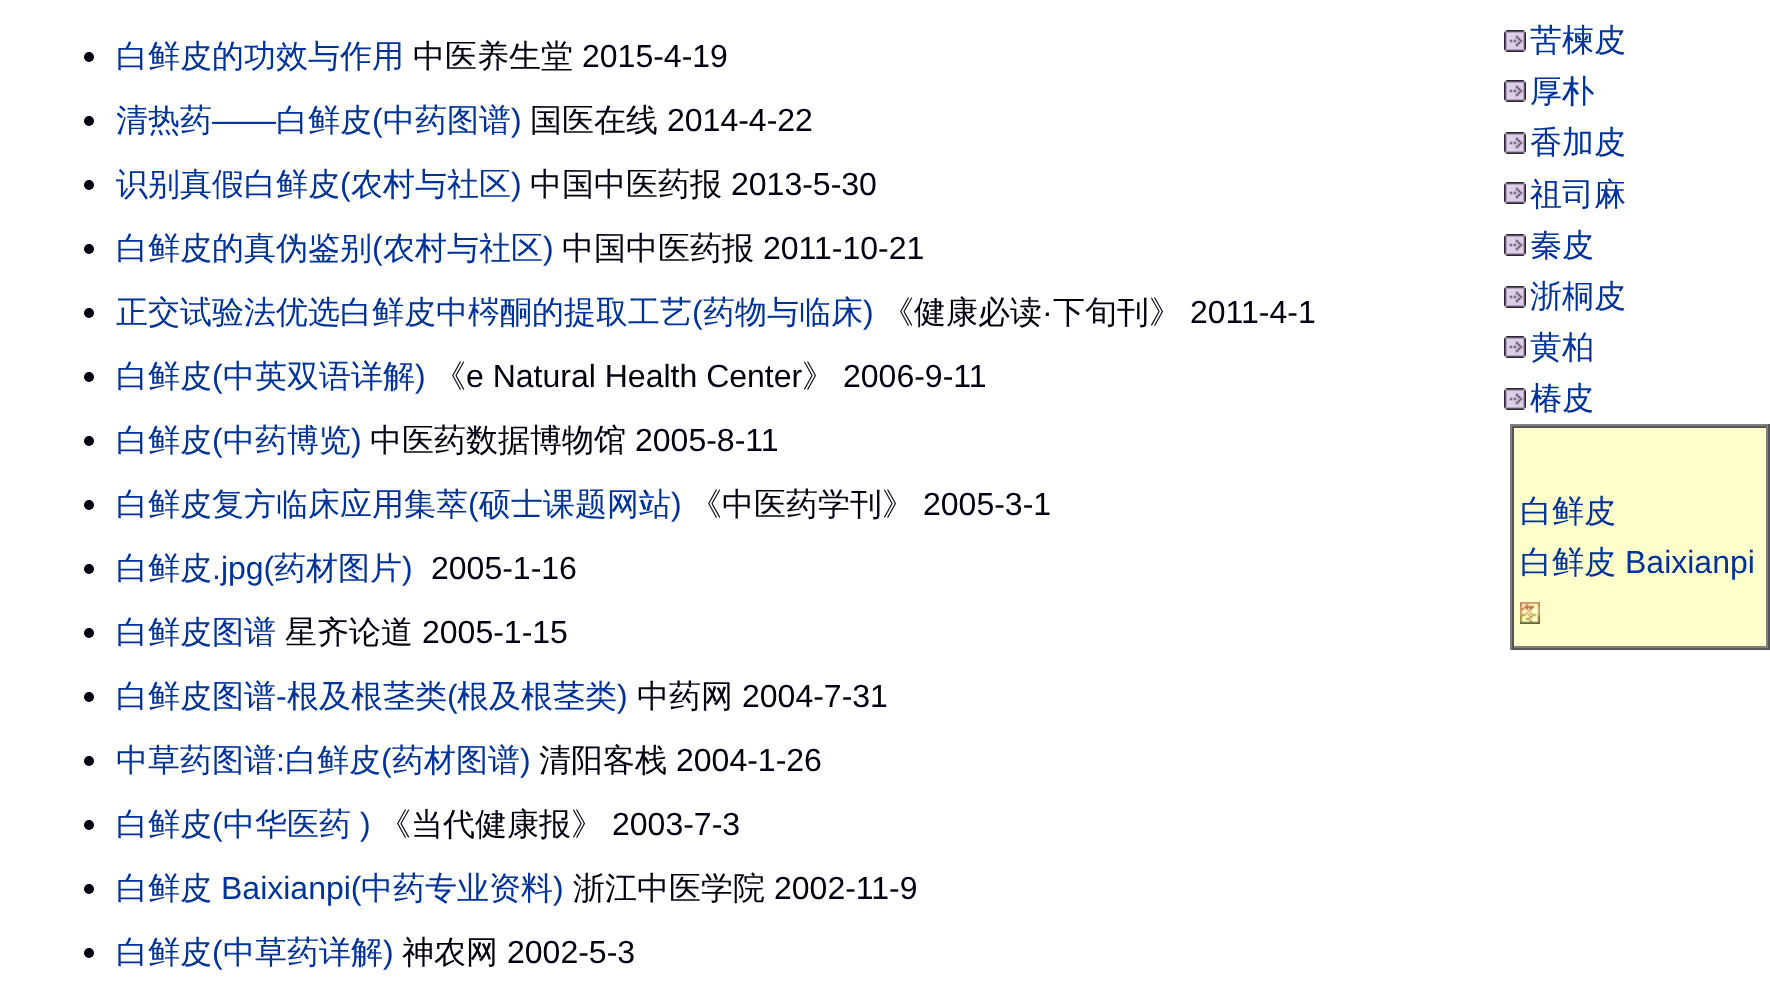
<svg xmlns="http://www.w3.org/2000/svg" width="1770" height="1003">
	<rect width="100%" height="100%" fill="#FFFFFF" />
	<circle cx="89" cy="57" r="5" fill="#00000F" />
	<text x="116" y="67" font-family="WenQuanYi Zen Hei" font-size="32" font-weight="500" fill="#003399">白鲜皮的功效与作用</text>
	<text x="413" y="67" font-family="WenQuanYi Zen Hei" font-size="32" font-weight="500" fill="#00000F">中医养生堂</text>
	<text x="582" y="67" font-family="Liberation Sans" font-size="32" fill="#00000F">2015-4-19</text>
	<circle cx="89" cy="121" r="5" fill="#00000F" />
	<text x="116" y="131" font-family="WenQuanYi Zen Hei" font-size="32" font-weight="500" fill="#003399">清热药</text>
	<text x="212" y="131" font-family="Liberation Sans" font-size="32" fill="#003399">——</text>
	<text x="276" y="131" font-family="WenQuanYi Zen Hei" font-size="32" font-weight="500" fill="#003399">白鲜皮</text>
	<text x="372" y="131" font-family="Liberation Sans" font-size="32" fill="#003399">(</text>
	<text x="383" y="131" font-family="WenQuanYi Zen Hei" font-size="32" font-weight="500" fill="#003399">中药图谱</text>
	<text x="511" y="131" font-family="Liberation Sans" font-size="32" fill="#003399">)</text>
	<text x="530" y="131" font-family="WenQuanYi Zen Hei" font-size="32" font-weight="500" fill="#00000F">国医在线</text>
	<text x="667" y="131" font-family="Liberation Sans" font-size="32" fill="#00000F">2014-4-22</text>
	<circle cx="89" cy="185" r="5" fill="#00000F" />
	<text x="116" y="195" font-family="WenQuanYi Zen Hei" font-size="32" font-weight="500" fill="#003399">识别真假白鲜皮</text>
	<text x="340" y="195" font-family="Liberation Sans" font-size="32" fill="#003399">(</text>
	<text x="351" y="195" font-family="WenQuanYi Zen Hei" font-size="32" font-weight="500" fill="#003399">农村与社区</text>
	<text x="511" y="195" font-family="Liberation Sans" font-size="32" fill="#003399">)</text>
	<text x="530" y="195" font-family="WenQuanYi Zen Hei" font-size="32" font-weight="500" fill="#00000F">中国中医药报</text>
	<text x="731" y="195" font-family="Liberation Sans" font-size="32" fill="#00000F">2013-5-30</text>
	<circle cx="89" cy="249" r="5" fill="#00000F" />
	<text x="116" y="259" font-family="WenQuanYi Zen Hei" font-size="32" font-weight="500" fill="#003399">白鲜皮的真伪鉴别</text>
	<text x="372" y="259" font-family="Liberation Sans" font-size="32" fill="#003399">(</text>
	<text x="383" y="259" font-family="WenQuanYi Zen Hei" font-size="32" font-weight="500" fill="#003399">农村与社区</text>
	<text x="543" y="259" font-family="Liberation Sans" font-size="32" fill="#003399">)</text>
	<text x="562" y="259" font-family="WenQuanYi Zen Hei" font-size="32" font-weight="500" fill="#00000F">中国中医药报</text>
	<text x="763" y="259" font-family="Liberation Sans" font-size="32" fill="#00000F">2011-10-21</text>
	<circle cx="89" cy="313" r="5" fill="#00000F" />
	<text x="116" y="323" font-family="WenQuanYi Zen Hei" font-size="32" font-weight="500" fill="#003399">正交试验法优选白鲜皮中梣酮的提取工艺</text>
	<text x="692" y="323" font-family="Liberation Sans" font-size="32" fill="#003399">(</text>
	<text x="703" y="323" font-family="WenQuanYi Zen Hei" font-size="32" font-weight="500" fill="#003399">药物与临床</text>
	<text x="863" y="323" font-family="Liberation Sans" font-size="32" fill="#003399">)</text>
	<text x="882" y="323" font-family="WenQuanYi Zen Hei" font-size="32" font-weight="500" fill="#00000F">《健康必读</text>
	<text x="1042" y="323" font-family="Liberation Sans" font-size="32" fill="#00000F">·</text>
	<text x="1053" y="323" font-family="WenQuanYi Zen Hei" font-size="32" font-weight="500" fill="#00000F">下旬刊》</text>
	<text x="1190" y="323" font-family="Liberation Sans" font-size="32" fill="#00000F">2011-4-1</text>
	<circle cx="89" cy="377" r="5" fill="#00000F" />
	<text x="116" y="387" font-family="WenQuanYi Zen Hei" font-size="32" font-weight="500" fill="#003399">白鲜皮</text>
	<text x="212" y="387" font-family="Liberation Sans" font-size="32" fill="#003399">(</text>
	<text x="223" y="387" font-family="WenQuanYi Zen Hei" font-size="32" font-weight="500" fill="#003399">中英双语详解</text>
	<text x="415" y="387" font-family="Liberation Sans" font-size="32" fill="#003399">)</text>
	<text x="434" y="387" font-family="WenQuanYi Zen Hei" font-size="32" font-weight="500" fill="#00000F">《</text>
	<text x="466" y="387" font-family="Liberation Sans" font-size="32" fill="#00000F">e Natural Health Center</text>
	<text x="802" y="387" font-family="WenQuanYi Zen Hei" font-size="32" font-weight="500" fill="#00000F">》</text>
	<text x="843" y="387" font-family="Liberation Sans" font-size="32" fill="#00000F">2006-9-11</text>
	<circle cx="89" cy="441" r="5" fill="#00000F" />
	<text x="116" y="451" font-family="WenQuanYi Zen Hei" font-size="32" font-weight="500" fill="#003399">白鲜皮</text>
	<text x="212" y="451" font-family="Liberation Sans" font-size="32" fill="#003399">(</text>
	<text x="223" y="451" font-family="WenQuanYi Zen Hei" font-size="32" font-weight="500" fill="#003399">中药博览</text>
	<text x="351" y="451" font-family="Liberation Sans" font-size="32" fill="#003399">)</text>
	<text x="370" y="451" font-family="WenQuanYi Zen Hei" font-size="32" font-weight="500" fill="#00000F">中医药数据博物馆</text>
	<text x="635" y="451" font-family="Liberation Sans" font-size="32" fill="#00000F">2005-8-11</text>
	<circle cx="89" cy="505" r="5" fill="#00000F" />
	<text x="116" y="515" font-family="WenQuanYi Zen Hei" font-size="32" font-weight="500" fill="#003399">白鲜皮复方临床应用集萃</text>
	<text x="468" y="515" font-family="Liberation Sans" font-size="32" fill="#003399">(</text>
	<text x="479" y="515" font-family="WenQuanYi Zen Hei" font-size="32" font-weight="500" fill="#003399">硕士课题网站</text>
	<text x="671" y="515" font-family="Liberation Sans" font-size="32" fill="#003399">)</text>
	<text x="690" y="515" font-family="WenQuanYi Zen Hei" font-size="32" font-weight="500" fill="#00000F">《中医药学刊》</text>
	<text x="923" y="515" font-family="Liberation Sans" font-size="32" fill="#00000F">2005-3-1</text>
	<circle cx="89" cy="569" r="5" fill="#00000F" />
	<text x="116" y="579" font-family="WenQuanYi Zen Hei" font-size="32" font-weight="500" fill="#003399">白鲜皮</text>
	<text x="212" y="579" font-family="Liberation Sans" font-size="32" fill="#003399">.jpg(</text>
	<text x="274" y="579" font-family="WenQuanYi Zen Hei" font-size="32" font-weight="500" fill="#003399">药材图片</text>
	<text x="402" y="579" font-family="Liberation Sans" font-size="32" fill="#003399">)</text>
	<text x="431" y="579" font-family="Liberation Sans" font-size="32" fill="#00000F">2005-1-16</text>
	<circle cx="89" cy="633" r="5" fill="#00000F" />
	<text x="116" y="643" font-family="WenQuanYi Zen Hei" font-size="32" font-weight="500" fill="#003399">白鲜皮图谱</text>
	<text x="285" y="643" font-family="WenQuanYi Zen Hei" font-size="32" font-weight="500" fill="#00000F">星齐论道</text>
	<text x="422" y="643" font-family="Liberation Sans" font-size="32" fill="#00000F">2005-1-15</text>
	<circle cx="89" cy="697" r="5" fill="#00000F" />
	<text x="116" y="707" font-family="WenQuanYi Zen Hei" font-size="32" font-weight="500" fill="#003399">白鲜皮图谱</text>
	<text x="276" y="707" font-family="Liberation Sans" font-size="32" fill="#003399">-</text>
	<text x="287" y="707" font-family="WenQuanYi Zen Hei" font-size="32" font-weight="500" fill="#003399">根及根茎类</text>
	<text x="447" y="707" font-family="Liberation Sans" font-size="32" fill="#003399">(</text>
	<text x="457" y="707" font-family="WenQuanYi Zen Hei" font-size="32" font-weight="500" fill="#003399">根及根茎类</text>
	<text x="617" y="707" font-family="Liberation Sans" font-size="32" fill="#003399">)</text>
	<text x="637" y="707" font-family="WenQuanYi Zen Hei" font-size="32" font-weight="500" fill="#00000F">中药网</text>
	<text x="742" y="707" font-family="Liberation Sans" font-size="32" fill="#00000F">2004-7-31</text>
	<circle cx="89" cy="761" r="5" fill="#00000F" />
	<text x="116" y="771" font-family="WenQuanYi Zen Hei" font-size="32" font-weight="500" fill="#003399">中草药图谱</text>
	<text x="276" y="771" font-family="Liberation Sans" font-size="32" fill="#003399">:</text>
	<text x="285" y="771" font-family="WenQuanYi Zen Hei" font-size="32" font-weight="500" fill="#003399">白鲜皮</text>
	<text x="381" y="771" font-family="Liberation Sans" font-size="32" fill="#003399">(</text>
	<text x="392" y="771" font-family="WenQuanYi Zen Hei" font-size="32" font-weight="500" fill="#003399">药材图谱</text>
	<text x="520" y="771" font-family="Liberation Sans" font-size="32" fill="#003399">)</text>
	<text x="539" y="771" font-family="WenQuanYi Zen Hei" font-size="32" font-weight="500" fill="#00000F">清阳客栈</text>
	<text x="676" y="771" font-family="Liberation Sans" font-size="32" fill="#00000F">2004-1-26</text>
	<circle cx="89" cy="825" r="5" fill="#00000F" />
	<text x="116" y="835" font-family="WenQuanYi Zen Hei" font-size="32" font-weight="500" fill="#003399">白鲜皮</text>
	<text x="212" y="835" font-family="Liberation Sans" font-size="32" fill="#003399">(</text>
	<text x="223" y="835" font-family="WenQuanYi Zen Hei" font-size="32" font-weight="500" fill="#003399">中华医药</text>
	<text x="360" y="835" font-family="Liberation Sans" font-size="32" fill="#003399">)</text>
	<text x="379" y="835" font-family="WenQuanYi Zen Hei" font-size="32" font-weight="500" fill="#00000F">《当代健康报》</text>
	<text x="612" y="835" font-family="Liberation Sans" font-size="32" fill="#00000F">2003-7-3</text>
	<circle cx="89" cy="889" r="5" fill="#00000F" />
	<text x="116" y="899" font-family="WenQuanYi Zen Hei" font-size="32" font-weight="500" fill="#003399">白鲜皮</text>
	<text x="221" y="899" font-family="Liberation Sans" font-size="32" fill="#003399">Baixianpi(</text>
	<text x="361" y="899" font-family="WenQuanYi Zen Hei" font-size="32" font-weight="500" fill="#003399">中药专业资料</text>
	<text x="553" y="899" font-family="Liberation Sans" font-size="32" fill="#003399">)</text>
	<text x="573" y="899" font-family="WenQuanYi Zen Hei" font-size="32" font-weight="500" fill="#00000F">浙江中医学院</text>
	<text x="774" y="899" font-family="Liberation Sans" font-size="32" fill="#00000F">2002-11-9</text>
	<circle cx="89" cy="953" r="5" fill="#00000F" />
	<text x="116" y="963" font-family="WenQuanYi Zen Hei" font-size="32" font-weight="500" fill="#003399">白鲜皮</text>
	<text x="212" y="963" font-family="Liberation Sans" font-size="32" fill="#003399">(</text>
	<text x="223" y="963" font-family="WenQuanYi Zen Hei" font-size="32" font-weight="500" fill="#003399">中草药详解</text>
	<text x="383" y="963" font-family="Liberation Sans" font-size="32" fill="#003399">)</text>
	<text x="402" y="963" font-family="WenQuanYi Zen Hei" font-size="32" font-weight="500" fill="#00000F">神农网</text>
	<text x="507" y="963" font-family="Liberation Sans" font-size="32" fill="#00000F">2002-5-3</text>
	<image x="1504" y="30" width="22" height="22" href="assets/img1.png" />
	<text x="1530" y="51" font-family="WenQuanYi Zen Hei" font-size="32" font-weight="500" fill="#003399">苦楝皮</text>
	<image x="1504" y="80" width="22" height="22" href="assets/img1.png" />
	<text x="1530" y="102" font-family="WenQuanYi Zen Hei" font-size="32" font-weight="500" fill="#003399">厚朴</text>
	<image x="1504" y="132" width="22" height="22" href="assets/img1.png" />
	<text x="1530" y="153" font-family="WenQuanYi Zen Hei" font-size="32" font-weight="500" fill="#003399">香加皮</text>
	<image x="1504" y="182" width="22" height="22" href="assets/img1.png" />
	<text x="1530" y="205" font-family="WenQuanYi Zen Hei" font-size="32" font-weight="500" fill="#003399">祖司麻</text>
	<image x="1504" y="234" width="22" height="22" href="assets/img1.png" />
	<text x="1530" y="256" font-family="WenQuanYi Zen Hei" font-size="32" font-weight="500" fill="#003399">秦皮</text>
	<image x="1504" y="286" width="22" height="22" href="assets/img1.png" />
	<text x="1530" y="307" font-family="WenQuanYi Zen Hei" font-size="32" font-weight="500" fill="#003399">浙桐皮</text>
	<image x="1504" y="336" width="22" height="22" href="assets/img1.png" />
	<text x="1530" y="358" font-family="WenQuanYi Zen Hei" font-size="32" font-weight="500" fill="#003399">黄柏</text>
	<image x="1504" y="388" width="22" height="22" href="assets/img1.png" />
	<text x="1530" y="409" font-family="WenQuanYi Zen Hei" font-size="32" font-weight="500" fill="#003399">椿皮</text>
	<rect x="1510" y="424" width="260" height="2" fill="#808080" />
	<rect x="1768" y="424" width="2" height="226" fill="#555555" />
	<rect x="1510" y="648" width="260" height="2" fill="#555555" />
	<rect x="1510" y="424" width="2" height="226" fill="#808080" />
	<rect x="1514" y="428" width="252" height="218" fill="#FFFFCC" />
	<rect x="1512" y="426" width="256" height="2" fill="#555555" />
	<rect x="1766" y="426" width="2" height="222" fill="#808080" />
	<rect x="1512" y="646" width="256" height="2" fill="#808080" />
	<rect x="1512" y="426" width="2" height="222" fill="#555555" />
	<g font-family="WenQuanYi Zen Hei" font-size="32" font-weight="500" fill="#003399">
		<text x="1520" y="522">白鲜皮</text>
		<text x="1520" y="573">白鲜皮</text>
	</g>
	<text x="1625" y="573" font-family="Liberation Sans" font-size="32" fill="#003399">Baixianpi</text>
	<image x="1520" y="602" width="20" height="22" href="assets/img2.png" />
</svg>
